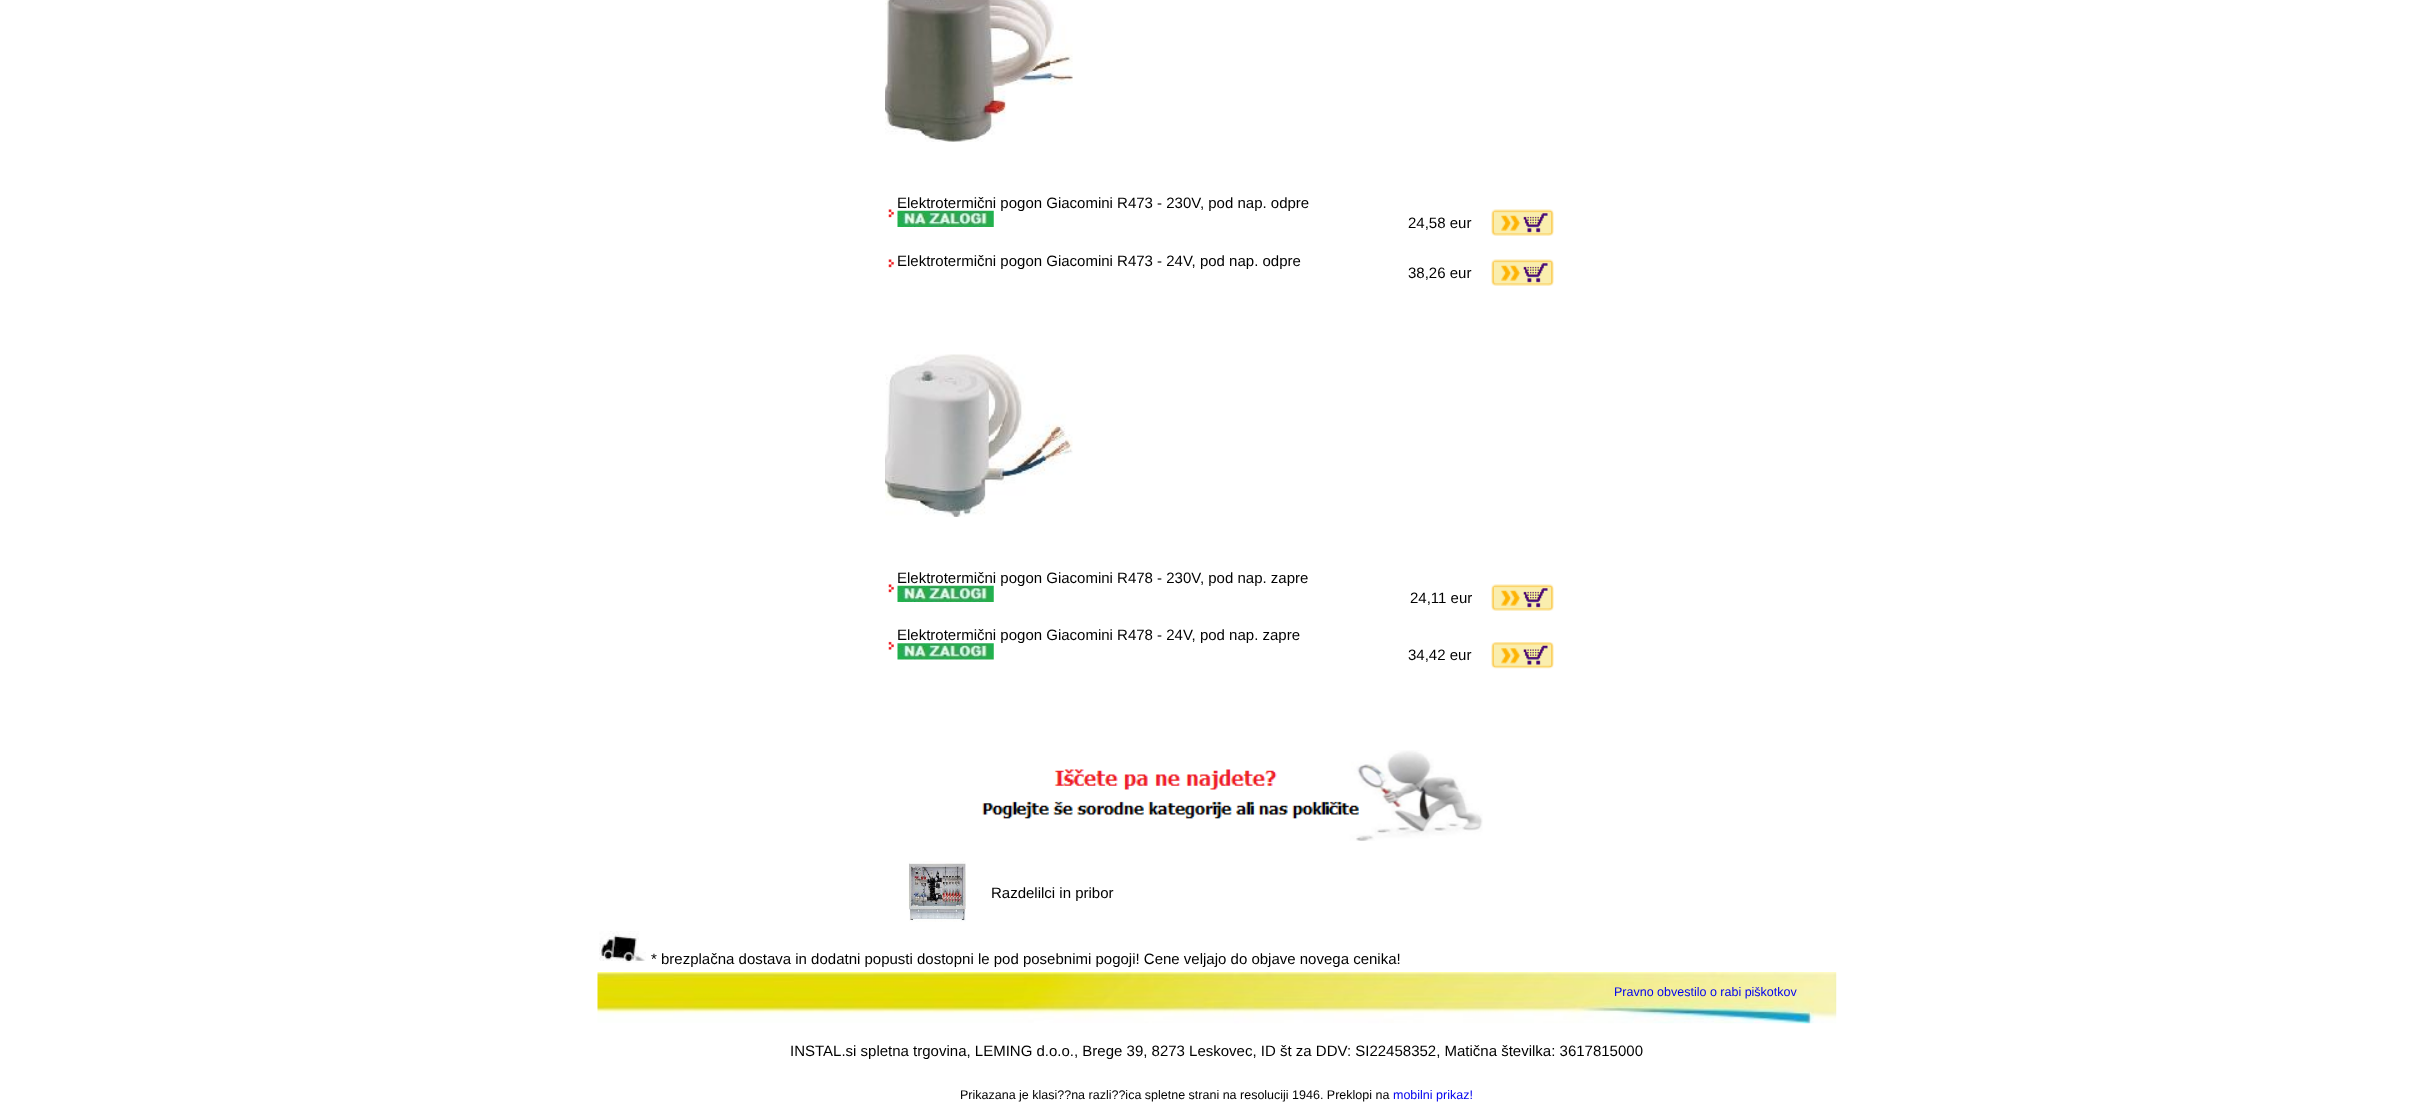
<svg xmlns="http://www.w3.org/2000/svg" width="2432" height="1113">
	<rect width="100%" height="100%" fill="#FFFFFF" />
	<image x="885" y="0" width="188" height="142" href="assets/img1.png" />
	<text x="897" y="208" font-family="Liberation Sans" font-size="15" fill="#000000">Elektrotermični pogon Giacomini R473 - 230V, pod nap. odpre</text>
	<image x="897" y="210" width="97" height="17" href="assets/img2.png" />
	<image x="886" y="209" width="9" height="9" href="assets/img3.png" />
	<text x="1408" y="228" font-family="Liberation Sans" font-size="15" fill="#000000">24,58 eur</text>
	<image x="1491" y="209" width="63" height="27" href="assets/img4.png" />
	<image x="886" y="259" width="9" height="9" href="assets/img3.png" />
	<g font-family="Liberation Sans" font-size="15" fill="#000000">
		<text x="897" y="266">Elektrotermični pogon Giacomini R473 - 24V, pod nap. odpre</text>
		<text x="1408" y="278">38,26 eur</text>
	</g>
	<image x="1491" y="259" width="63" height="27" href="assets/img4.png" />
	<image x="885" y="354" width="188" height="163" href="assets/img5.png" />
	<text x="897" y="583" font-family="Liberation Sans" font-size="15" fill="#000000">Elektrotermični pogon Giacomini R478 - 230V, pod nap. zapre</text>
	<image x="897" y="585" width="97" height="17" href="assets/img2.png" />
	<image x="886" y="584" width="9" height="9" href="assets/img3.png" />
	<text x="1410" y="603" font-family="Liberation Sans" font-size="15" fill="#000000">24,11 eur</text>
	<image x="1491" y="584" width="63" height="27" href="assets/img4.png" />
	<text x="897" y="640" font-family="Liberation Sans" font-size="15" fill="#000000">Elektrotermični pogon Giacomini R478 - 24V, pod nap. zapre</text>
	<image x="897" y="643" width="97" height="17" href="assets/img6.png" />
	<image x="888" y="641" width="7" height="10" href="assets/img7.png" />
	<text x="1408" y="660" font-family="Liberation Sans" font-size="15" fill="#000000">34,42 eur</text>
	<image x="1491" y="642" width="63" height="27" href="assets/img8.png" />
	<image x="982" y="750" width="501" height="91" href="assets/img9.png" />
	<image x="908" y="861" width="58" height="61" href="assets/img10.png" />
	<text x="991" y="898" font-family="Liberation Sans" font-size="15" fill="#000000">Razdelilci in pribor</text>
	<image x="599" y="931" width="47" height="32" href="assets/img11.png" />
	<text x="651" y="964" font-family="Liberation Sans" font-size="15" fill="#000000">* brezplačna dostava in dodatni popusti dostopni le pod posebnimi pogoji! Cene veljajo do objave novega cenika!</text>
	<image x="597" y="972" width="1240" height="52" href="assets/img12.png" />
	<text x="1614" y="996" font-family="Liberation Sans" font-size="12.5" fill="#0000EE">Pravno obvestilo o rabi piškotkov</text>
	<text x="790" y="1056" font-family="Liberation Sans" font-size="15" fill="#000000">INSTAL.si spletna trgovina, LEMING d.o.o., Brege 39, 8273 Leskovec, ID št za DDV: SI22458352, Matična številka: 3617815000</text>
	<text x="960" y="1099" font-family="Liberation Sans" font-size="12.5" fill="#000000">Prikazana je klasi??na razli??ica spletne strani na resoluciji 1946. Preklopi na</text>
	<text x="1393" y="1099" font-family="Liberation Sans" font-size="12.5" fill="#0000EE">mobilni prikaz!</text>
</svg>
